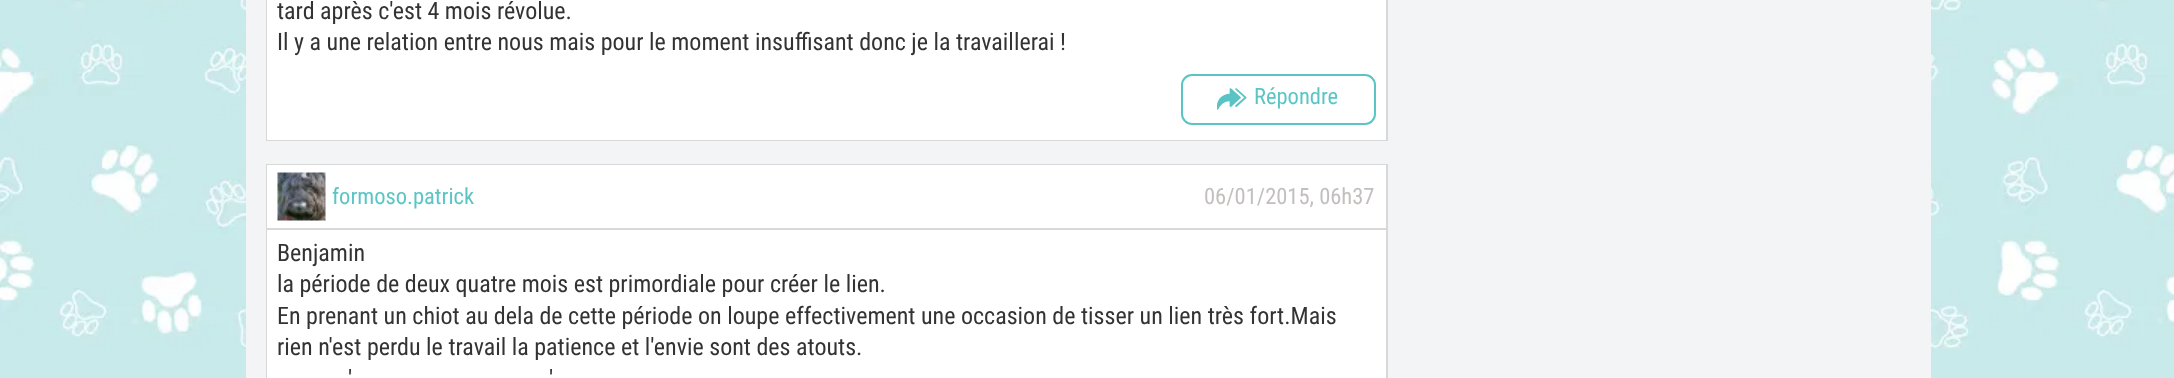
<svg xmlns="http://www.w3.org/2000/svg" width="2174" height="378">
	<rect width="100%" height="100%" fill="#C8EAEB" />
	<image x="0" y="0" width="2174" height="349" href="assets/img1.png" />
	<rect x="246" y="0" width="1685" height="378" fill="#F3F4F5" />
	<rect x="266" y="0" width="1122" height="141" fill="#D8D8D8" />
	<rect x="267" y="0" width="1119" height="140" fill="#FFFFFF" />
	<g font-family="Roboto Condensed" font-size="24" fill="#333333">
		<text x="277" y="19">tard après c'est 4 mois révolue.</text>
		<text x="277" y="50">Il y a une relation entre nous mais pour le moment insuffisant donc je la travaillerai !</text>
	</g>
	<rect x="1182" y="75" width="193" height="49" rx="10" fill="none" stroke="#5BC5C5" stroke-width="2" />
	<image x="1217" y="88" width="30" height="22" href="assets/img2.png" />
	<text x="1254" y="104" font-family="Roboto Condensed" font-size="22.5" fill="#5BC5C5">Répondre</text>
	<rect x="266" y="164" width="1122" height="214" fill="#D8D8D8" />
	<rect x="267" y="165" width="1119" height="63" fill="#FFFFFF" />
	<image x="277" y="172" width="49" height="49" href="assets/img3.png" />
	<text x="332" y="204" font-family="Roboto Condensed" font-size="22.5" fill="#5BC5C5">formoso.patrick</text>
	<text x="1204" y="204" font-family="Roboto Condensed" font-size="22.5" fill="#C2BFBE">06/01/2015, 06h37</text>
	<rect x="267" y="230" width="1119" height="148" fill="#FFFFFF" />
	<g font-family="Roboto Condensed" font-size="24" fill="#333333">
		<text x="277" y="261">Benjamin</text>
		<text x="277" y="292">la période de deux quatre mois est primordiale pour créer le lien.</text>
		<text x="277" y="324">En prenant un chiot au dela de cette période on loupe effectivement une occasion de tisser un lien très fort.Mais</text>
		<text x="277" y="355">rien n'est perdu le travail la patience et l'envie sont des atouts.</text>
		<text x="348" y="387">'</text>
		<text x="549" y="387">'</text>
	</g>
</svg>
